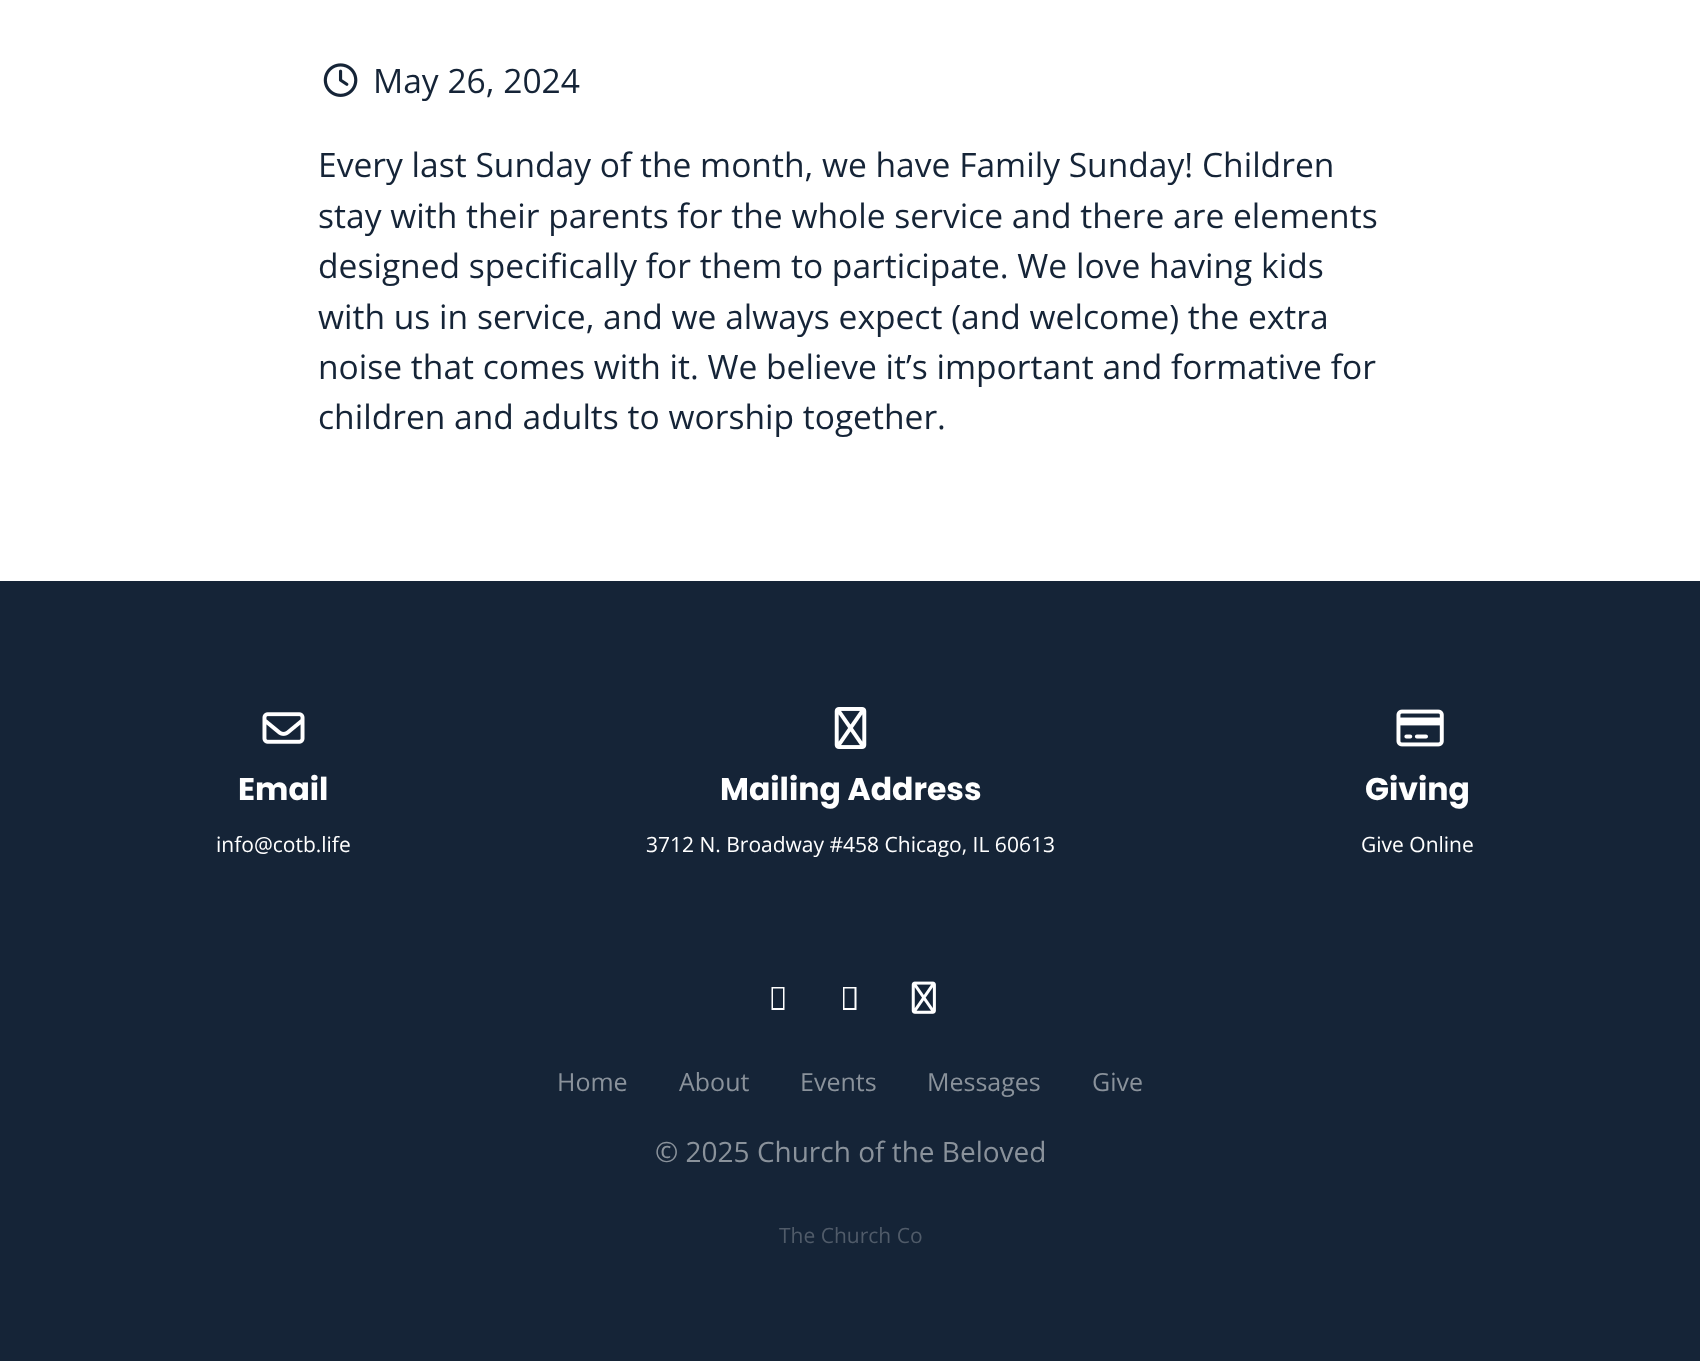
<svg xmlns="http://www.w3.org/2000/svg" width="1700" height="1361">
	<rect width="100%" height="100%" fill="#FFFFFF" />
	<image x="323" y="63" width="35" height="34" href="assets/img1.png" />
	<g font-family="Open Sans" font-size="33.6" fill="#152437">
		<text x="373" y="93">May 26, 2024</text>
		<text x="318" y="177">Every last Sunday of the month, we have Family Sunday! Children</text>
		<text x="318" y="228">stay with their parents for the whole service and there are elements</text>
		<text x="318" y="278">designed specifically for them to participate. We love having kids</text>
		<text x="318" y="329">with us in service, and we always expect (and welcome) the extra</text>
		<text x="318" y="379">noise that comes with it. We believe it’s important and formative for</text>
		<text x="318" y="429">children and adults to worship together.</text>
	</g>
	<rect x="0" y="581" width="1700" height="780" fill="#152437" />
	<image x="262" y="712" width="43" height="32" href="assets/img2.png" />
	<text x="238" y="800" font-family="Poppins" font-size="31.5" font-weight="700" fill="#FFFFFF">Email</text>
	<text x="216" y="852" font-family="Open Sans" font-size="21" fill="#FFFFFF">info@cotb.life</text>
	<image x="834" y="707" width="33" height="42" href="assets/img3.png" />
	<text x="720" y="800" font-family="Poppins" font-size="31.5" font-weight="700" fill="#FFFFFF">Mailing Address</text>
	<text x="646" y="852" font-family="Open Sans" font-size="21" fill="#FFFFFF">3712 N. Broadway #458 Chicago, IL 60613</text>
	<image x="1396" y="709" width="48" height="38" href="assets/img4.png" />
	<text x="1365" y="800" font-family="Poppins" font-size="31.5" font-weight="700" fill="#FFFFFF">Giving</text>
	<text x="1361" y="852" font-family="Open Sans" font-size="21" fill="#FFFFFF">Give Online</text>
	<path d="M771.5 1010V987H784.5V1010ZM773 1008H783V988.5H773Z" fill="#FFFFFF" />
	<path d="M843 1010V987H856.5V1010ZM844.5 1008H854.5V988.5H844.5Z" fill="#FFFFFF" />
	<image x="911" y="981" width="25" height="33" href="assets/img5.png" />
	<g font-family="Open Sans" font-size="25" fill="#8A929B">
		<text x="557" y="1091">Home</text>
		<text x="679" y="1091">About</text>
		<text x="800" y="1091">Events</text>
		<text x="927" y="1091">Messages</text>
		<text x="1092" y="1091">Give</text>
	</g>
	<text x="655" y="1162" font-family="Open Sans" font-size="28" fill="#8A929B">© 2025 Church of the Beloved</text>
	<text x="779" y="1243" font-family="Open Sans" font-size="21" fill="#505B69">The Church Co</text>
</svg>
